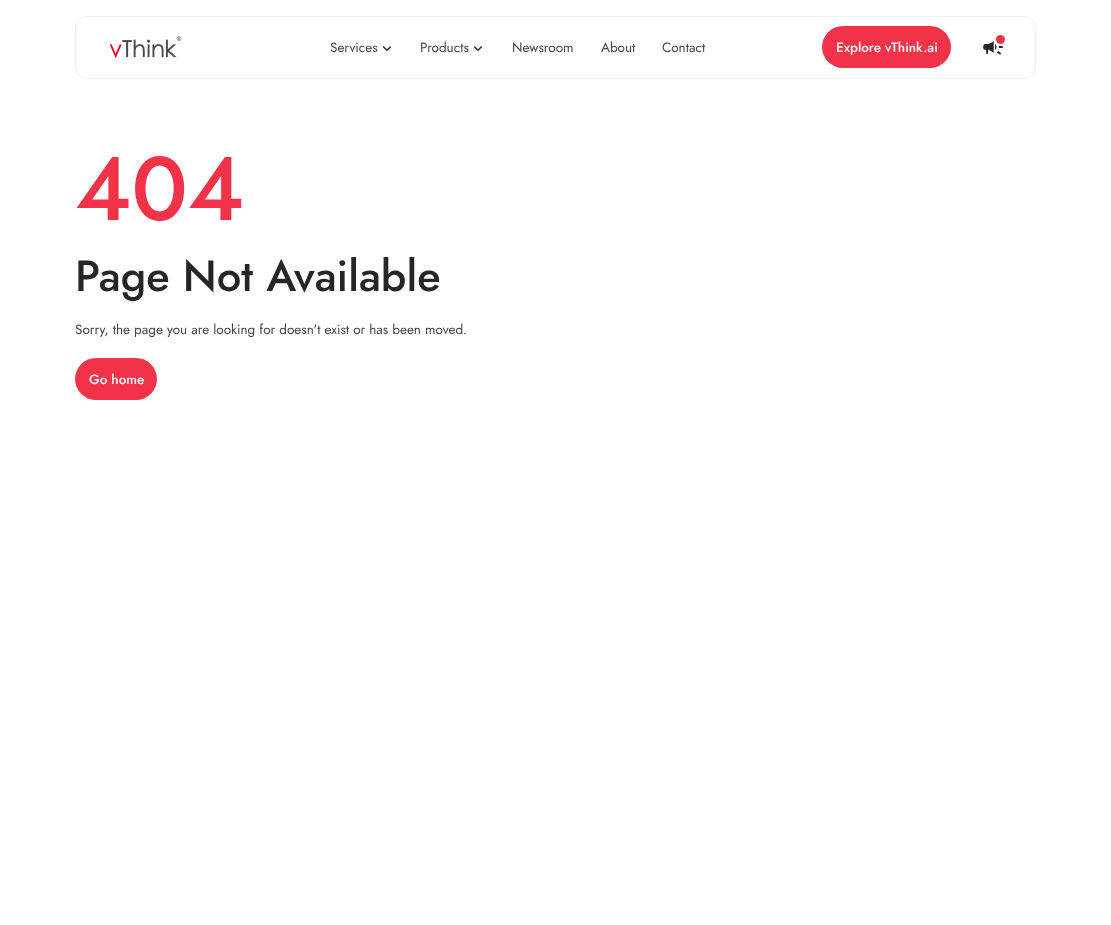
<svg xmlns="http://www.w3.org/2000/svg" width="1111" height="925">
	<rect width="100%" height="100%" fill="#FFFFFF" />
	<rect x="75.5" y="16.5" width="960" height="62" rx="11.5" fill="none" stroke="#F0F0F0" />
	<image x="109" y="36" width="73" height="22" href="assets/img1.png" />
	<text x="330" y="52" font-family="Jost" font-size="13.5" fill="#454545">Services</text>
	<image x="383" y="46" width="8" height="5" href="assets/img2.png" />
	<text x="420" y="52" font-family="Jost" font-size="13.5" fill="#454545">Products</text>
	<image x="474" y="46" width="8" height="5" href="assets/img2.png" />
	<g font-family="Jost" font-size="13.5" fill="#454545">
		<text x="512" y="52">Newsroom</text>
		<text x="601" y="52">About</text>
		<text x="662" y="52">Contact</text>
	</g>
	<rect x="822" y="26" width="129" height="42" rx="21" fill="#F1334A" />
	<text x="836" y="52" font-family="Jost" font-size="13.5" font-weight="500" fill="#FFFFFF">Explore vThink.ai</text>
	<image x="983" y="35" width="22" height="20" href="assets/img3.png" />
	<text x="75" y="220" font-family="Jost" font-size="90" font-weight="500" fill="#F1334A">404</text>
	<text x="75" y="291" font-family="Jost" font-size="43.5" font-weight="500" fill="#262626">Page Not Available</text>
	<text x="75" y="334" font-family="Jost" font-size="13.5" fill="#454545">Sorry, the page you are looking for doesn't exist or has been moved.</text>
	<rect x="75" y="358" width="82" height="42" rx="21" fill="#F1334A" />
	<text x="89" y="384" font-family="Jost" font-size="13.5" font-weight="500" fill="#FFFFFF">Go home</text>
</svg>
